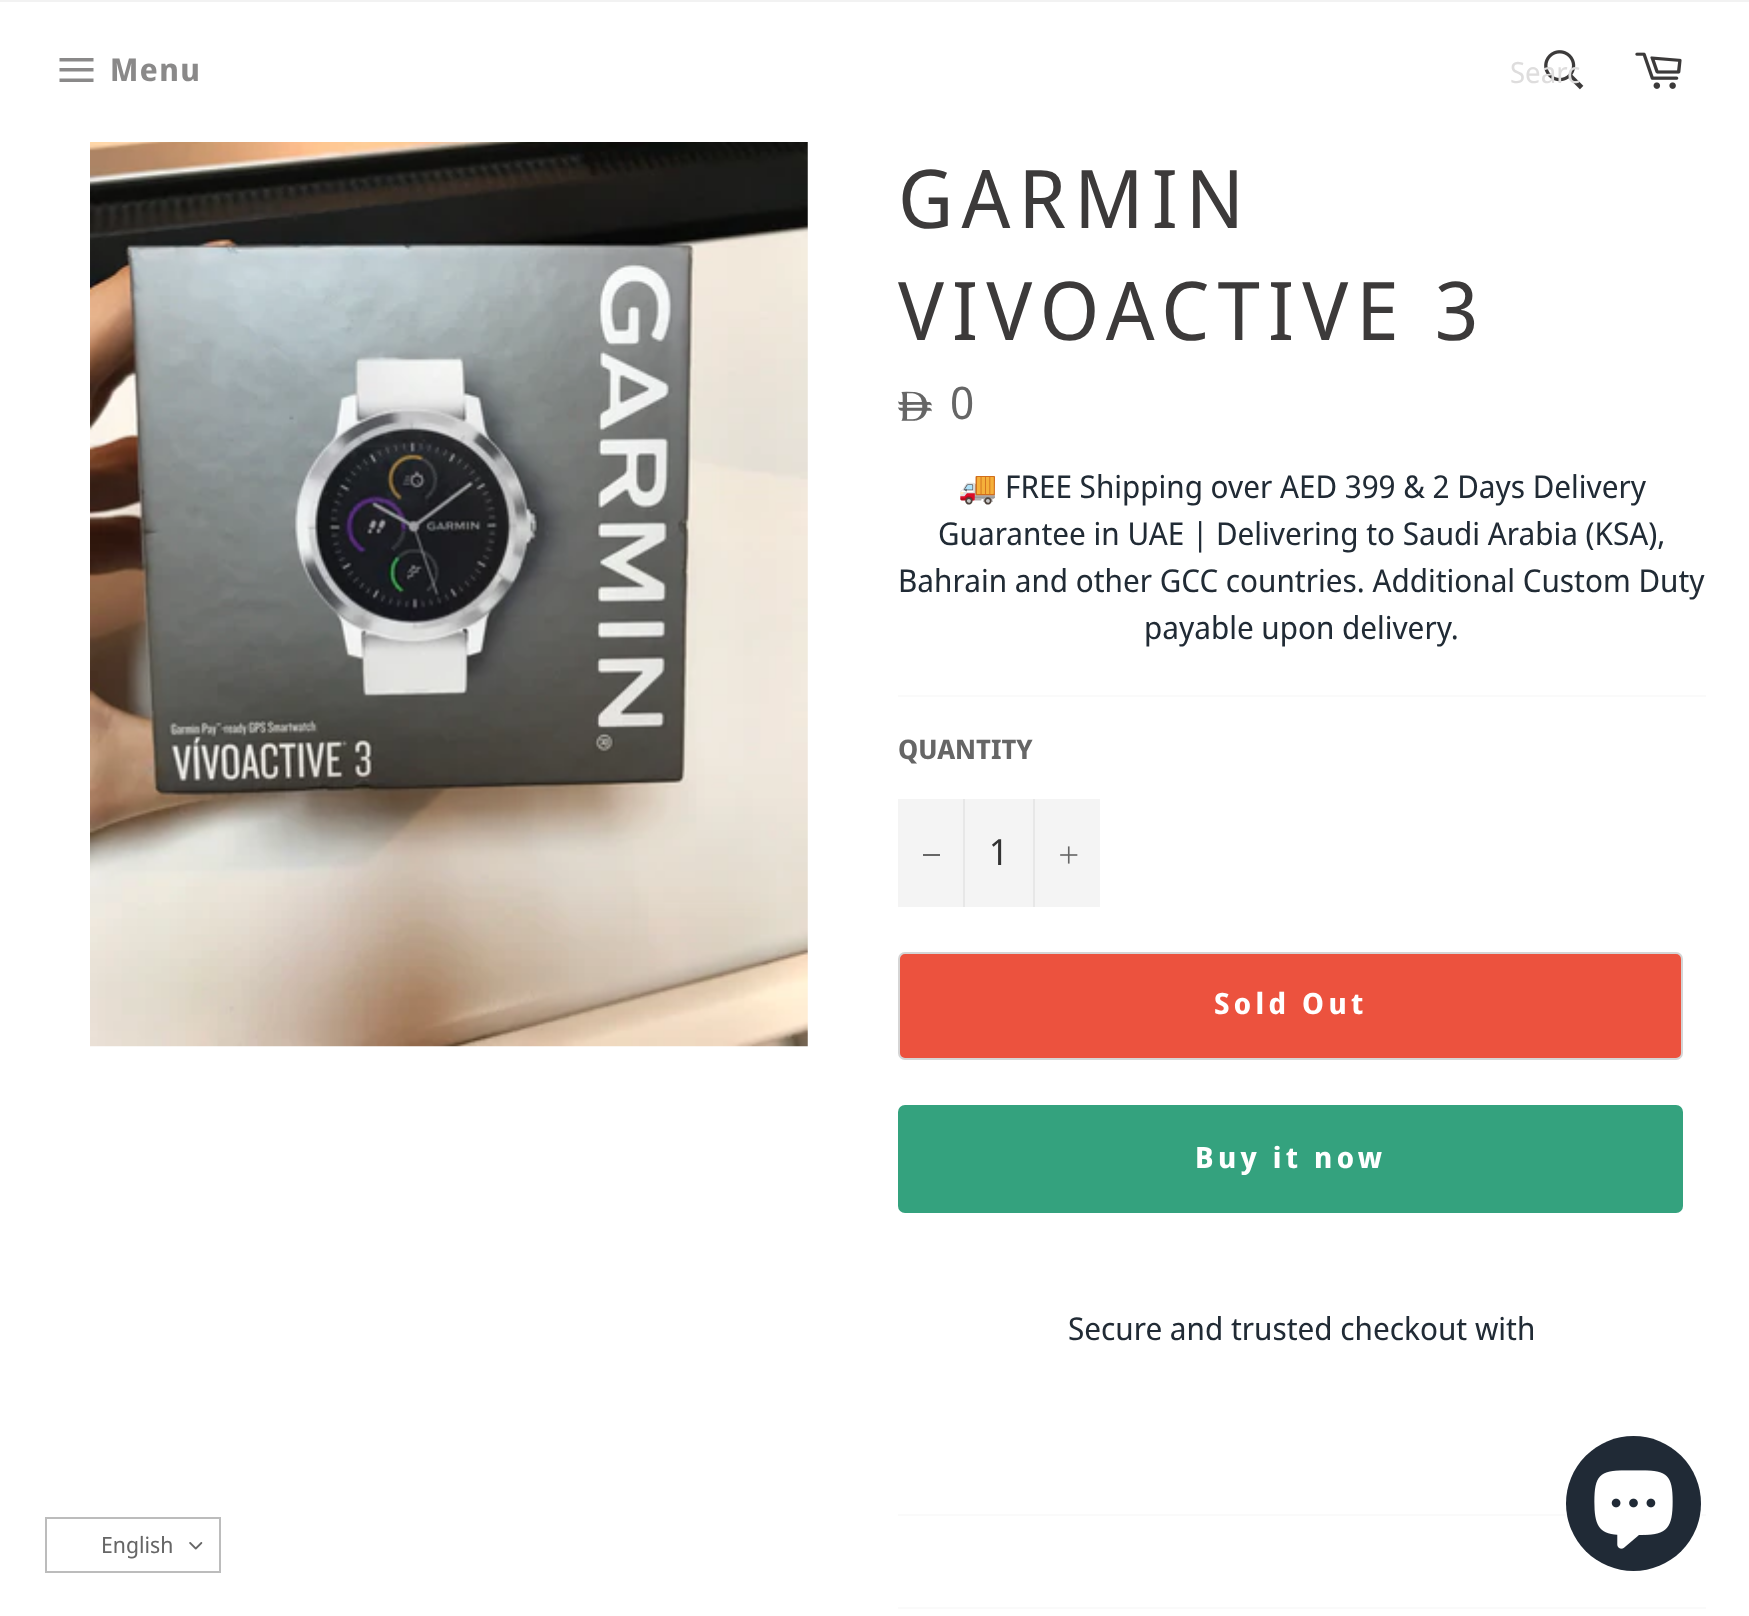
<svg xmlns="http://www.w3.org/2000/svg" width="1749" height="1616">
	<rect width="100%" height="100%" fill="#FFFFFF" />
	<rect x="0" y="0" width="1749" height="2" fill="#F2F2F2" />
	<path d="M59.5 68H93.5V71.5H59.5ZM59.5 58H93.5V61.5H59.5ZM59.5 78.5H93.5V82H59.5Z" fill="#8A8989" />
	<text x="110" y="81" font-family="Noto Sans Display" font-size="31.5" font-weight="700" letter-spacing="1.5" fill="#8A8989">Menu</text>
	<image x="1544" y="50" width="40" height="40" href="assets/img1.png" />
	<text x="1510" y="83" font-family="Noto Sans Display" font-size="29.25" fill="#DEDDDD">Searc</text>
	<image x="1635" y="52" width="47" height="37" href="assets/img2.png" />
	<image x="90" y="142" width="718" height="905" href="assets/img3.png" />
	<g font-family="Noto Sans Display" font-size="81" letter-spacing="8.1" fill="#3C3A3A">
		<text x="898" y="228">GARMIN</text>
		<text x="898" y="340">VIVOACTIVE 3</text>
	</g>
	<text x="898" y="417" font-family="'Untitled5'" font-size="34" fill="#666666">ê</text>
	<text x="950" y="419" font-family="Noto Sans Display" font-size="45" fill="#666666">0</text>
	<text x="958" y="498" font-family="Noto Color Emoji" font-size="31.5" fill="#212B35">🚚</text>
	<g font-family="Noto Sans Display" font-size="31.5" fill="#212B35">
		<text x="1005" y="498">FREE Shipping over AED 399 &amp; 2 Days Delivery</text>
		<text x="938" y="545">Guarantee in UAE | Delivering to Saudi Arabia (KSA),</text>
		<text x="898" y="592">Bahrain and other GCC countries. Additional Custom Duty</text>
		<text x="1144" y="639">payable upon delivery.</text>
	</g>
	<rect x="898" y="695" width="808" height="2" fill="#FAFAFA" />
	<text x="898" y="759" font-family="Noto Sans Display" font-size="27" font-weight="700" fill="#666666">QUANTITY</text>
	<rect x="898" y="799" width="202" height="108" fill="#F4F4F4" />
	<rect x="963" y="799" width="2" height="108" fill="#E7E7E7" />
	<rect x="923" y="854" width="17" height="2" fill="#666666" />
	<text x="989" y="865" font-family="Noto Sans Display" font-size="36" fill="#333333">1</text>
	<rect x="1033" y="799" width="2" height="108" fill="#E7E7E7" />
	<image x="1060" y="846" width="18" height="18" href="assets/img4.png" />
	<rect x="899" y="953" width="783" height="106" rx="6" fill="#EC523E" stroke="#D5D5D5" stroke-width="2" />
	<text x="1214" y="1014" font-family="Noto Sans Display" font-size="29.25" font-weight="700" letter-spacing="4.4" fill="#FFFFFF">Sold Out</text>
	<rect x="898" y="1105" width="785" height="108" rx="7" fill="#34A27E" />
	<text x="1195" y="1168" font-family="Noto Sans Display" font-size="29.25" font-weight="700" letter-spacing="4.4" fill="#FFFFFF">Buy it now</text>
	<text x="1068" y="1340" font-family="Noto Sans Display" font-size="31.5" fill="#212B35">Secure and trusted checkout with</text>
	<rect x="898" y="1514" width="808" height="2" fill="#FAFAFA" />
	<rect x="898" y="1607" width="808" height="2" fill="#FAFAFA" />
	<rect x="46" y="1518" width="174" height="54" fill="none" stroke="#BCBCBC" stroke-width="2" />
	<text x="101" y="1553" font-family="Noto Sans Display" font-size="22.5" fill="#666666">English</text>
	<image x="189" y="1542" width="14" height="8" href="assets/img5.png" />
	<circle cx="1633.5" cy="1503.5" r="67.5" fill="#202A36" />
	<image x="1594" y="1470" width="79" height="79" href="assets/img6.png" />
</svg>
